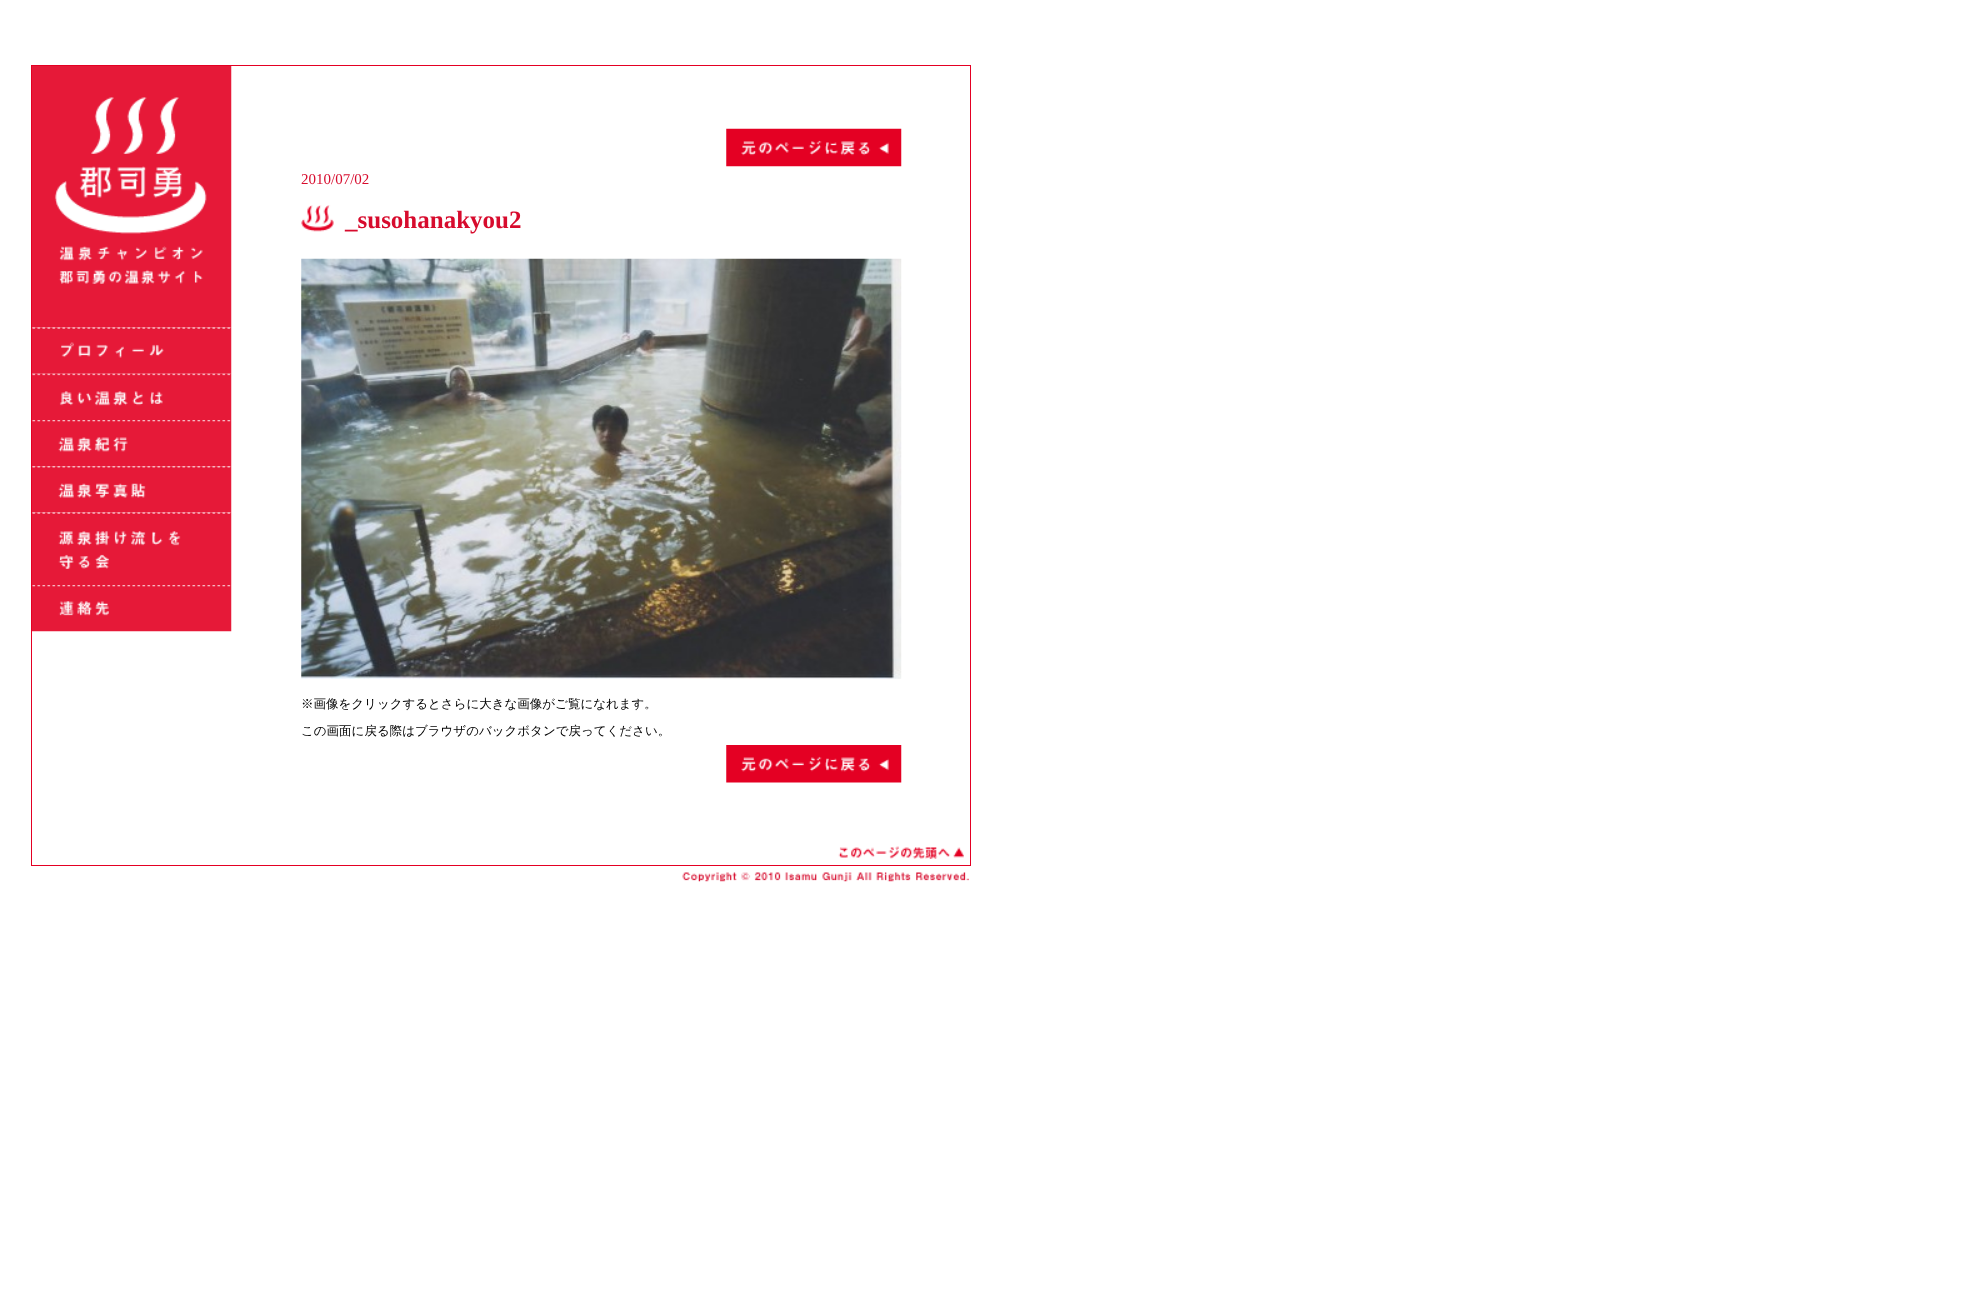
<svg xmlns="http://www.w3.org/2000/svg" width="1967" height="1294">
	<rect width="100%" height="100%" fill="#FFFFFF" />
	<rect x="31.5" y="65.5" width="939" height="800" fill="none" stroke="#E40023" />
	<image x="32" y="66" width="200" height="262" href="assets/img1.png" />
	<image x="32" y="327" width="200" height="47" href="assets/img2.png" />
	<image x="32" y="373" width="200" height="47" href="assets/img3.png" />
	<image x="32" y="420" width="200" height="47" href="assets/img4.png" />
	<image x="32" y="466" width="200" height="47" href="assets/img5.png" />
	<image x="32" y="512" width="200" height="73" href="assets/img6.png" />
	<image x="32" y="585" width="200" height="47" href="assets/img7.png" />
	<image x="726" y="128" width="176" height="39" href="assets/img8.png" />
	<text x="301" y="184" font-family="Liberation Serif" font-size="15" fill="#D70B2D">2010/07/02</text>
	<image x="301" y="205" width="33" height="27" href="assets/img9.png" />
	<text x="345" y="228" font-family="Liberation Serif" font-size="25" font-weight="700" fill="#D70B2D">_susohanakyou2</text>
	<image x="301" y="258" width="601" height="421" href="assets/img10.png" />
	<g font-family="WenQuanYi Zen Hei" font-size="12.5" font-weight="500" fill="#000000">
		<text x="301" y="708">※画像をクリックするとさらに大きな画像がご覧になれます。</text>
		<text x="301" y="735">この画面に戻る際はブラウザのバックボタンで戻ってください。</text>
	</g>
	<image x="726" y="745" width="176" height="38" href="assets/img11.png" />
	<image x="838" y="846" width="126" height="13" href="assets/img12.png" />
	<image x="682" y="872" width="287" height="10" href="assets/img13.png" />
</svg>
